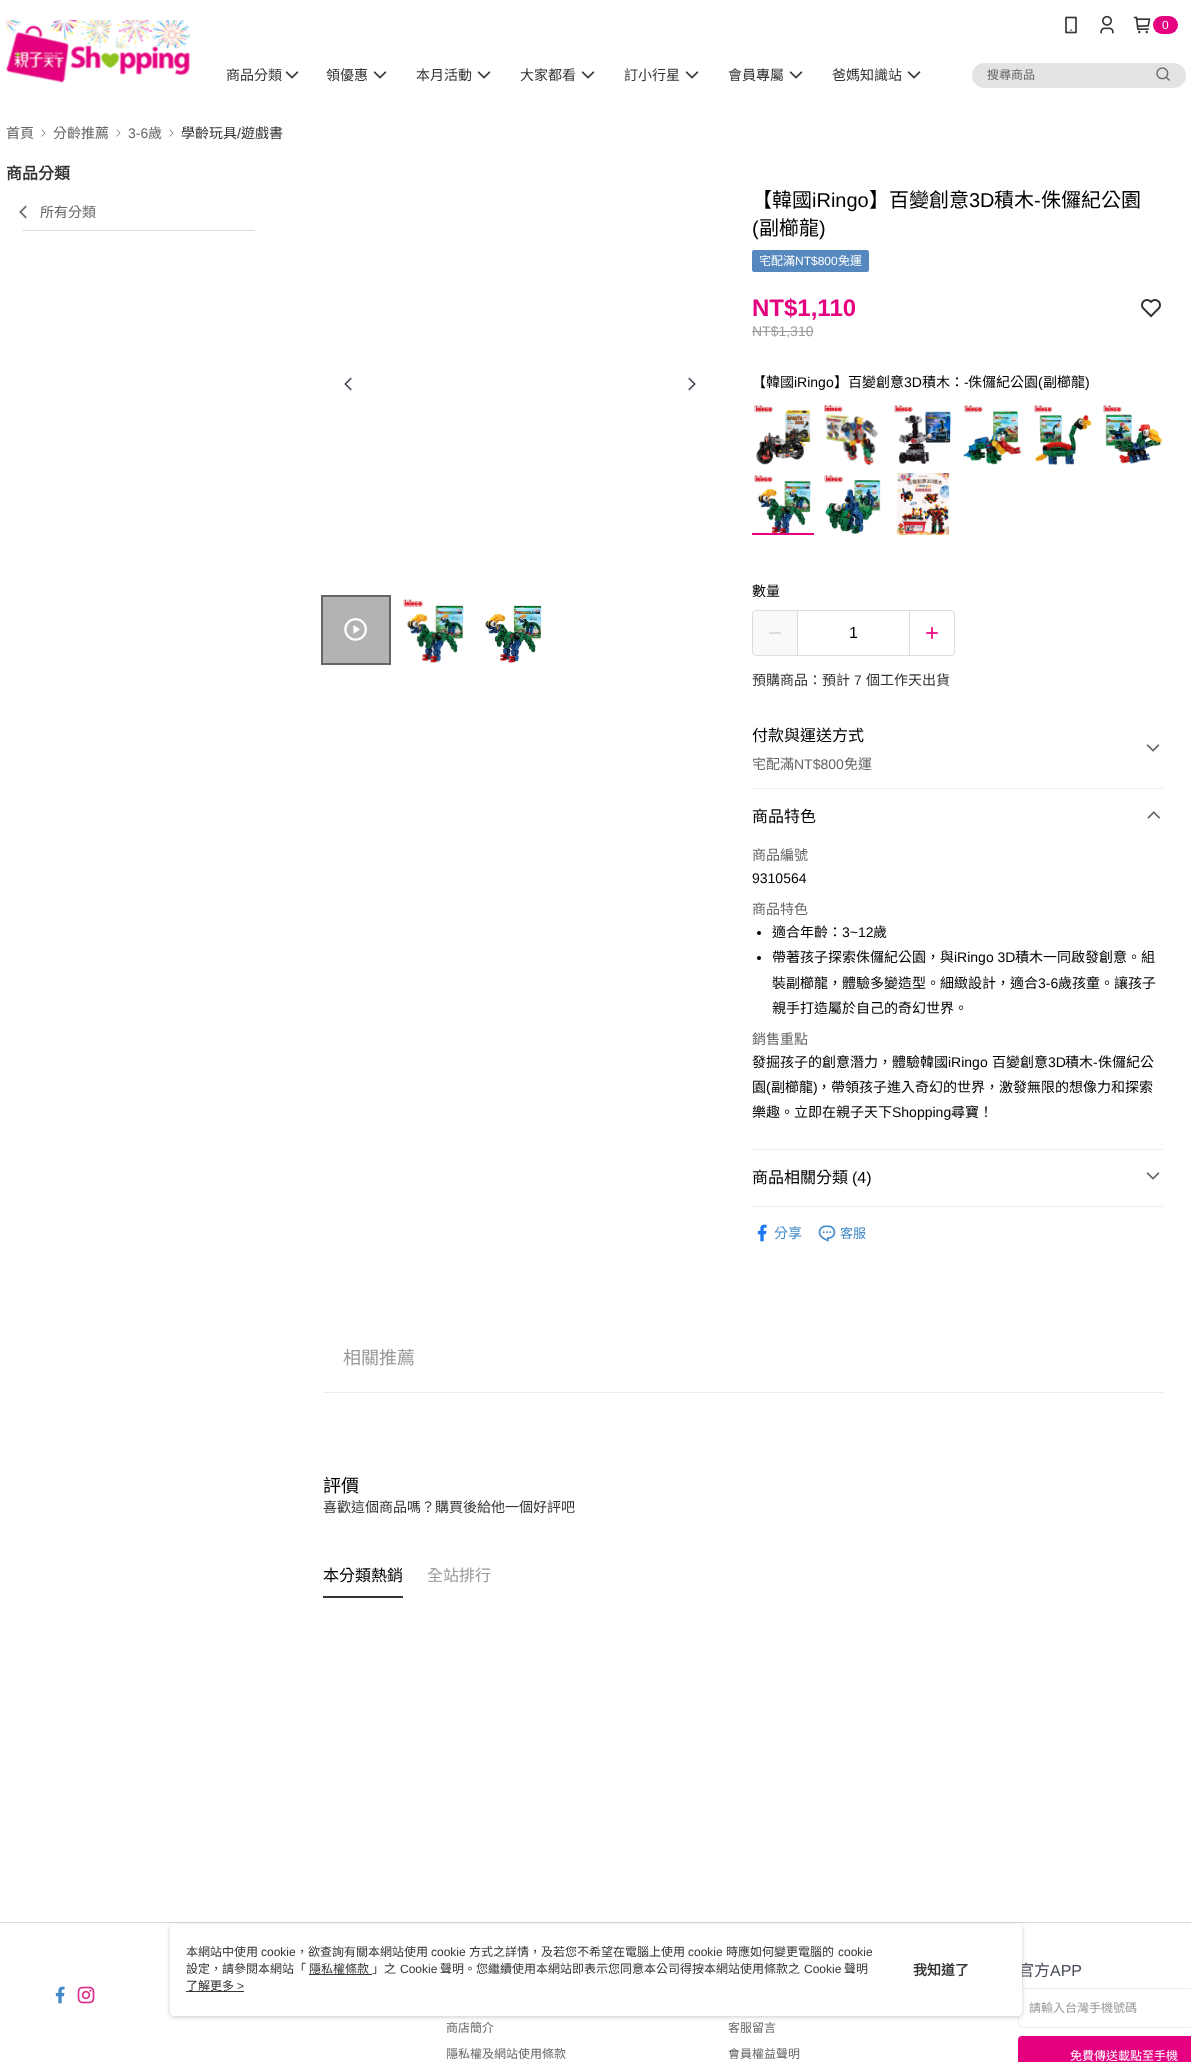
<svg xmlns="http://www.w3.org/2000/svg" width="1191" height="2062">
	<rect width="100%" height="100%" fill="#FFFFFF" />
	<image x="5" y="20" width="186" height="63" href="assets/img1.png" />
	<image x="1065" y="16" width="12" height="18" href="assets/img2.png" />
	<image x="1100" y="15" width="14" height="19" href="assets/img3.png" />
	<image x="1133" y="16" width="18" height="18" href="assets/img4.png" />
	<rect x="1153" y="16" width="25" height="18" rx="9" fill="#E4007F" />
	<text x="1162" y="29" font-family="Liberation Sans" font-size="12" fill="#FFFFFF">0</text>
	<text x="226" y="80" font-family="Noto Sans CJK TC" font-size="14" fill="#333333">商品分類</text>
	<image x="285" y="71" width="14" height="8" href="assets/img5.png" />
	<text x="326" y="80" font-family="Noto Sans CJK TC" font-size="14" fill="#333333">領優惠</text>
	<image x="373" y="71" width="14" height="8" href="assets/img5.png" />
	<text x="416" y="80" font-family="Noto Sans CJK TC" font-size="14" fill="#333333">本月活動</text>
	<image x="477" y="71" width="14" height="8" href="assets/img5.png" />
	<text x="520" y="80" font-family="Noto Sans CJK TC" font-size="14" fill="#333333">大家都看</text>
	<image x="581" y="71" width="14" height="8" href="assets/img5.png" />
	<text x="624" y="80" font-family="Noto Sans CJK TC" font-size="14" fill="#333333">訂小行星</text>
	<image x="685" y="71" width="14" height="8" href="assets/img5.png" />
	<text x="728" y="80" font-family="Noto Sans CJK TC" font-size="14" fill="#333333">會員專屬</text>
	<image x="789" y="71" width="14" height="8" href="assets/img5.png" />
	<text x="832" y="80" font-family="Noto Sans CJK TC" font-size="14" fill="#333333">爸媽知識站</text>
	<image x="907" y="71" width="14" height="8" href="assets/img5.png" />
	<rect x="972" y="63" width="214" height="25" rx="12.5" fill="#E4E2E2" />
	<text x="987" y="79" font-family="Noto Sans CJK TC" font-size="12" fill="#666666">搜尋商品</text>
	<image x="1156" y="67" width="14" height="14" href="assets/img6.png" />
	<text x="6" y="138" font-family="Noto Sans CJK TC" font-size="14" fill="#666666">首頁</text>
	<image x="41" y="129" width="5" height="8" href="assets/img7.png" />
	<text x="53" y="138" font-family="Noto Sans CJK TC" font-size="14" fill="#666666">分齡推薦</text>
	<image x="116" y="129" width="5" height="8" href="assets/img7.png" />
	<text x="128" y="138" font-family="Liberation Sans" font-size="14" fill="#666666">3-6</text>
	<text x="148" y="138" font-family="Noto Sans CJK TC" font-size="14" fill="#666666">歲</text>
	<image x="169" y="129" width="5" height="8" href="assets/img7.png" />
	<text x="181" y="138" font-family="Noto Sans CJK TC" font-size="14" fill="#333333">學齡玩具</text>
	<text x="237" y="138" font-family="Liberation Sans" font-size="14" fill="#333333">/</text>
	<text x="241" y="138" font-family="Noto Sans CJK TC" font-size="14" fill="#333333">遊戲書</text>
	<text x="6" y="179" font-family="Noto Sans CJK TC" font-size="16" font-weight="700" fill="#333333">商品分類</text>
	<image x="19" y="205" width="8" height="14" href="assets/img8.png" />
	<text x="40" y="217" font-family="Noto Sans CJK TC" font-size="14" fill="#666666">所有分類</text>
	<rect x="22" y="230" width="233" height="1" fill="#DDDDDD" />
	<image x="344" y="377" width="8" height="14" href="assets/img9.png" />
	<image x="688" y="377" width="8" height="14" href="assets/img10.png" />
	<rect x="322" y="596" width="68" height="68" fill="none" stroke="#666666" stroke-width="2" />
	<rect x="323" y="597" width="66" height="66" fill="#B3B3B3" />
	<image x="344" y="618" width="23" height="23" href="assets/img11.png" />
	<image x="403" y="599" width="61" height="64" href="assets/img12.png" />
	<image x="484" y="605" width="58" height="58" href="assets/img13.png" />
	<text x="752" y="207" font-family="Noto Sans CJK TC" font-size="20" fill="#000000">【韓國</text>
	<text x="812" y="207" font-family="Liberation Sans" font-size="20" fill="#000000">iRingo</text>
	<text x="869" y="207" font-family="Noto Sans CJK TC" font-size="20" fill="#000000">】百變創意</text>
	<text x="969" y="207" font-family="Liberation Sans" font-size="20" fill="#000000">3D</text>
	<text x="994" y="207" font-family="Noto Sans CJK TC" font-size="20" fill="#000000">積木</text>
	<text x="1034" y="207" font-family="Liberation Sans" font-size="20" fill="#000000">-</text>
	<text x="1041" y="207" font-family="Noto Sans CJK TC" font-size="20" fill="#000000">侏儸紀公園</text>
	<text x="752" y="235" font-family="Liberation Sans" font-size="20" fill="#000000">(</text>
	<text x="759" y="235" font-family="Noto Sans CJK TC" font-size="20" fill="#000000">副櫛龍</text>
	<text x="819" y="235" font-family="Liberation Sans" font-size="20" fill="#000000">)</text>
	<rect x="752.5" y="250.5" width="116" height="21" rx="1.5" fill="#5588BE" stroke="#5588BE" />
	<text x="759" y="265" font-family="Noto Sans CJK TC" font-size="12" fill="#FFFFFF">宅配滿</text>
	<text x="795" y="265" font-family="Liberation Sans" font-size="12" fill="#FFFFFF">NT$800</text>
	<text x="838" y="265" font-family="Noto Sans CJK TC" font-size="12" fill="#FFFFFF">免運</text>
	<text x="752" y="316" font-family="Liberation Sans" font-size="24" font-weight="700" fill="#E4007F">NT$1,110</text>
	<image x="1141" y="299" width="20" height="19" href="assets/img14.png" />
	<text x="752" y="336" font-family="Liberation Sans" font-size="14" fill="#999999">NT$1,310</text>
	<rect x="752" y="331" width="61" height="1" fill="#999999" />
	<text x="752" y="387" font-family="Noto Sans CJK TC" font-size="14" fill="#000000">【韓國</text>
	<text x="794" y="387" font-family="Liberation Sans" font-size="14" fill="#000000">iRingo</text>
	<text x="834" y="387" font-family="Noto Sans CJK TC" font-size="14" fill="#000000">】百變創意</text>
	<text x="904" y="387" font-family="Liberation Sans" font-size="14" fill="#000000">3D</text>
	<text x="922" y="387" font-family="Noto Sans CJK TC" font-size="14" fill="#000000">積木：</text>
	<text x="964" y="387" font-family="Liberation Sans" font-size="14" fill="#000000">-</text>
	<text x="968" y="387" font-family="Noto Sans CJK TC" font-size="14" fill="#000000">侏儸紀公園</text>
	<text x="1038" y="387" font-family="Liberation Sans" font-size="14" fill="#000000">(</text>
	<text x="1043" y="387" font-family="Noto Sans CJK TC" font-size="14" fill="#000000">副櫛龍</text>
	<text x="1085" y="387" font-family="Liberation Sans" font-size="14" fill="#000000">)</text>
	<image x="752" y="403" width="62" height="62" href="assets/img15.png" />
	<image x="822" y="403" width="62" height="62" href="assets/img16.png" />
	<image x="892" y="403" width="62" height="62" href="assets/img17.png" />
	<image x="962" y="403" width="62" height="62" href="assets/img18.png" />
	<image x="1032" y="403" width="61" height="62" href="assets/img19.png" />
	<image x="1101" y="403" width="62" height="62" href="assets/img20.png" />
	<image x="752" y="473" width="62" height="60" href="assets/img21.png" />
	<rect x="752" y="533" width="62" height="2" fill="#E4007F" />
	<image x="822" y="473" width="62" height="62" href="assets/img22.png" />
	<image x="892" y="473" width="62" height="62" href="assets/img23.png" />
	<text x="752" y="596" font-family="Noto Sans CJK TC" font-size="14" fill="#000000">數量</text>
	<rect x="752.5" y="610.5" width="202" height="45" rx="3.5" fill="none" stroke="#DDDDDD" />
	<rect x="753" y="611" width="44" height="44" fill="#F1F1F1" fill-opacity="0.4" />
	<rect x="769" y="632" width="12" height="2" fill="#DDDDDD" />
	<rect x="909" y="611" width="1" height="44" fill="#DDDDDD" />
	<rect x="797" y="611" width="1" height="44" fill="#DDDDDD" />
	<text x="849" y="638" font-family="Liberation Sans" font-size="16" fill="#000000">1</text>
	<image x="926" y="627" width="12" height="12" href="assets/img24.png" />
	<text x="752" y="685" font-family="Noto Sans CJK TC" font-size="14" fill="#333333">預購商品：預計</text>
	<text x="854" y="685" font-family="Liberation Sans" font-size="14" fill="#333333">7</text>
	<text x="866" y="685" font-family="Noto Sans CJK TC" font-size="14" fill="#333333">個工作天出貨</text>
	<rect x="752" y="788" width="411" height="1" fill="#ECEFF1" />
	<text x="752" y="741" font-family="Noto Sans CJK TC" font-size="16" fill="#000000">付款與運送方式</text>
	<text x="752" y="769" font-family="Noto Sans CJK TC" font-size="14" fill="#666666">宅配滿</text>
	<text x="794" y="769" font-family="Liberation Sans" font-size="14" fill="#666666">NT$800</text>
	<text x="844" y="769" font-family="Noto Sans CJK TC" font-size="14" fill="#666666">免運</text>
	<image x="1146" y="744" width="14" height="8" href="assets/img25.png" />
	<rect x="752" y="1149" width="411" height="1" fill="#ECEFF1" />
	<text x="752" y="822" font-family="Noto Sans CJK TC" font-size="16" fill="#000000">商品特色</text>
	<image x="1147" y="811" width="14" height="8" href="assets/img26.png" />
	<text x="752" y="860" font-family="Noto Sans CJK TC" font-size="14" fill="#666666">商品編號</text>
	<text x="752" y="883" font-family="Liberation Sans" font-size="14" fill="#000000">9310564</text>
	<text x="752" y="914" font-family="Noto Sans CJK TC" font-size="14" fill="#666666">商品特色</text>
	<circle cx="759" cy="933" r="2" fill="#000000" />
	<text x="772" y="937" font-family="Noto Sans CJK TC" font-size="14" fill="#000000">適合年齡：</text>
	<text x="842" y="937" font-family="Liberation Sans" font-size="14" fill="#000000">3~12</text>
	<text x="873" y="937" font-family="Noto Sans CJK TC" font-size="14" fill="#000000">歲</text>
	<circle cx="759" cy="958" r="2" fill="#000000" />
	<text x="772" y="962" font-family="Noto Sans CJK TC" font-size="14" fill="#000000">帶著孩子探索侏儸紀公園，與</text>
	<text x="954" y="962" font-family="Liberation Sans" font-size="14" fill="#000000">iRingo 3D</text>
	<g font-family="Noto Sans CJK TC" font-size="14" fill="#000000">
		<text x="1015" y="962">積木一同啟發創意。組</text>
		<text x="772" y="988">裝副櫛龍，體驗多變造型。細緻設計，適合</text>
	</g>
	<text x="1038" y="988" font-family="Liberation Sans" font-size="14" fill="#000000">3-6</text>
	<g font-family="Noto Sans CJK TC" font-size="14" fill="#000000">
		<text x="1058" y="988">歲孩童。讓孩子</text>
		<text x="772" y="1013">親手打造屬於自己的奇幻世界。</text>
	</g>
	<text x="752" y="1044" font-family="Noto Sans CJK TC" font-size="14" fill="#666666">銷售重點</text>
	<text x="752" y="1067" font-family="Noto Sans CJK TC" font-size="14" fill="#000000">發掘孩子的創意潛力，體驗韓國</text>
	<text x="948" y="1067" font-family="Liberation Sans" font-size="14" fill="#000000">iRingo</text>
	<text x="992" y="1067" font-family="Noto Sans CJK TC" font-size="14" fill="#000000">百變創意</text>
	<text x="1048" y="1067" font-family="Liberation Sans" font-size="14" fill="#000000">3D</text>
	<text x="1065" y="1067" font-family="Noto Sans CJK TC" font-size="14" fill="#000000">積木</text>
	<text x="1093" y="1067" font-family="Liberation Sans" font-size="14" fill="#000000">-</text>
	<g font-family="Noto Sans CJK TC" font-size="14" fill="#000000">
		<text x="1098" y="1067">侏儸紀公</text>
		<text x="752" y="1092">園</text>
	</g>
	<text x="766" y="1092" font-family="Liberation Sans" font-size="14" fill="#000000">(</text>
	<text x="771" y="1092" font-family="Noto Sans CJK TC" font-size="14" fill="#000000">副櫛龍</text>
	<text x="813" y="1092" font-family="Liberation Sans" font-size="14" fill="#000000">)</text>
	<g font-family="Noto Sans CJK TC" font-size="14" fill="#000000">
		<text x="817" y="1092">，帶領孩子進入奇幻的世界，激發無限的想像力和探索</text>
		<text x="752" y="1117">樂趣。立即在親子天下</text>
	</g>
	<text x="892" y="1117" font-family="Liberation Sans" font-size="14" fill="#000000">Shopping</text>
	<text x="951" y="1117" font-family="Noto Sans CJK TC" font-size="14" fill="#000000">尋寶！</text>
	<rect x="752" y="1206" width="411" height="1" fill="#ECEFF1" />
	<text x="752" y="1183" font-family="Noto Sans CJK TC" font-size="16" fill="#000000">商品相關分類</text>
	<text x="852" y="1183" font-family="Liberation Sans" font-size="16" fill="#000000">(4)</text>
	<image x="1146" y="1172" width="14" height="8" href="assets/img25.png" />
	<image x="757" y="1224" width="10" height="18" href="assets/img27.png" />
	<text x="774" y="1238" font-family="Noto Sans CJK TC" font-size="14" fill="#428BCA">分享</text>
	<image x="818" y="1225" width="18" height="17" href="assets/img28.png" />
	<text x="840" y="1238" font-family="Noto Sans CJK TC" font-size="13" fill="#428BCA">客服</text>
	<rect x="323" y="1392" width="840" height="1" fill="#ECECEC" />
	<text x="343" y="1364" font-family="Noto Sans CJK TC" font-size="18" fill="#999999">相關推薦</text>
	<text x="323" y="1492" font-family="Noto Sans CJK TC" font-size="18" fill="#000000">評價</text>
	<text x="323" y="1512" font-family="Noto Sans CJK TC" font-size="14" fill="#333333">喜歡這個商品嗎？購買後給他一個好評吧</text>
	<rect x="323" y="1596" width="80" height="2" fill="#333333" />
	<text x="323" y="1581" font-family="Noto Sans CJK TC" font-size="16" fill="#000000">本分類熱銷</text>
	<text x="427" y="1581" font-family="Noto Sans CJK TC" font-size="16" fill="#999999">全站排行</text>
	<rect x="0" y="1922" width="1191" height="1" fill="#DADADA" />
	<image x="55" y="1986" width="10" height="18" href="assets/img29.png" />
	<image x="77" y="1986" width="18" height="18" href="assets/img30.png" />
	<text x="1018" y="1976" font-family="Noto Sans CJK TC" font-size="16" fill="#4A4E5C">官方</text>
	<text x="1050" y="1976" font-family="Liberation Sans" font-size="16" fill="#4A4E5C">APP</text>
	<rect x="1018.5" y="1988.5" width="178" height="39" rx="4.5" fill="none" stroke="#EDEDED" />
	<text x="1029" y="2012" font-family="Noto Sans CJK TC" font-size="12" fill="#999999">請輸入台灣手機號碼</text>
	<rect x="1018" y="2036" width="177" height="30" rx="4" fill="#E4007F" />
	<text x="1070" y="2060" font-family="Noto Sans CJK TC" font-size="12" fill="#FFFFFF">免費傳送載點至手機</text>
	<g font-family="Noto Sans CJK TC" font-size="12" fill="#666666">
		<text x="446" y="2032">商店簡介</text>
		<text x="446" y="2058">隱私權及網站使用條款</text>
		<text x="728" y="2032">客服留言</text>
		<text x="728" y="2058">會員權益聲明</text>
	</g>
	<rect x="170" y="1925" width="852" height="92" rx="4" fill="#979797" fill-opacity="0.5" filter="blur(2px)" />
	<rect x="170" y="1924" width="852" height="92" rx="4" fill="#FFFFFF" />
	<text x="186" y="1956" font-family="Noto Sans CJK TC" font-size="12" fill="#333333">本網站中使用</text>
	<text x="261" y="1956" font-family="Liberation Sans" font-size="12" fill="#333333">cookie</text>
	<text x="296" y="1956" font-family="Noto Sans CJK TC" font-size="12" fill="#333333">，欲查詢有關本網站使用</text>
	<text x="431" y="1956" font-family="Liberation Sans" font-size="12" fill="#333333">cookie</text>
	<text x="469" y="1956" font-family="Noto Sans CJK TC" font-size="12" fill="#333333">方式之詳情，及若您不希望在電腦上使用</text>
	<text x="688" y="1956" font-family="Liberation Sans" font-size="12" fill="#333333">cookie</text>
	<text x="726" y="1956" font-family="Noto Sans CJK TC" font-size="12" fill="#333333">時應如何變更電腦的</text>
	<text x="838" y="1956" font-family="Liberation Sans" font-size="12" fill="#333333">cookie</text>
	<g font-family="Noto Sans CJK TC" font-size="12" fill="#333333">
		<text x="186" y="1973">設定，請參閱本網站「</text>
		<text x="309" y="1973">隱私權條款</text>
	</g>
	<rect x="309" y="1974" width="63" height="1" fill="#373737" />
	<text x="372" y="1973" font-family="Noto Sans CJK TC" font-size="12" fill="#333333">」之</text>
	<text x="400" y="1973" font-family="Liberation Sans" font-size="12" fill="#333333">Cookie</text>
	<text x="440" y="1973" font-family="Noto Sans CJK TC" font-size="12" fill="#333333">聲明。您繼續使用本網站即表示您同意本公司得按本網站使用條款之</text>
	<text x="804" y="1973" font-family="Liberation Sans" font-size="12" fill="#333333">Cookie</text>
	<g font-family="Noto Sans CJK TC" font-size="12" fill="#333333">
		<text x="844" y="1973">聲明</text>
		<text x="186" y="1990">了解更多</text>
	</g>
	<text x="237" y="1990" font-family="Liberation Sans" font-size="12" fill="#333333">&gt;</text>
	<rect x="186" y="1991" width="58" height="1" fill="#373737" />
	<text x="913" y="1975" font-family="Noto Sans CJK TC" font-size="14" font-weight="700" fill="#333333">我知道了</text>
</svg>
